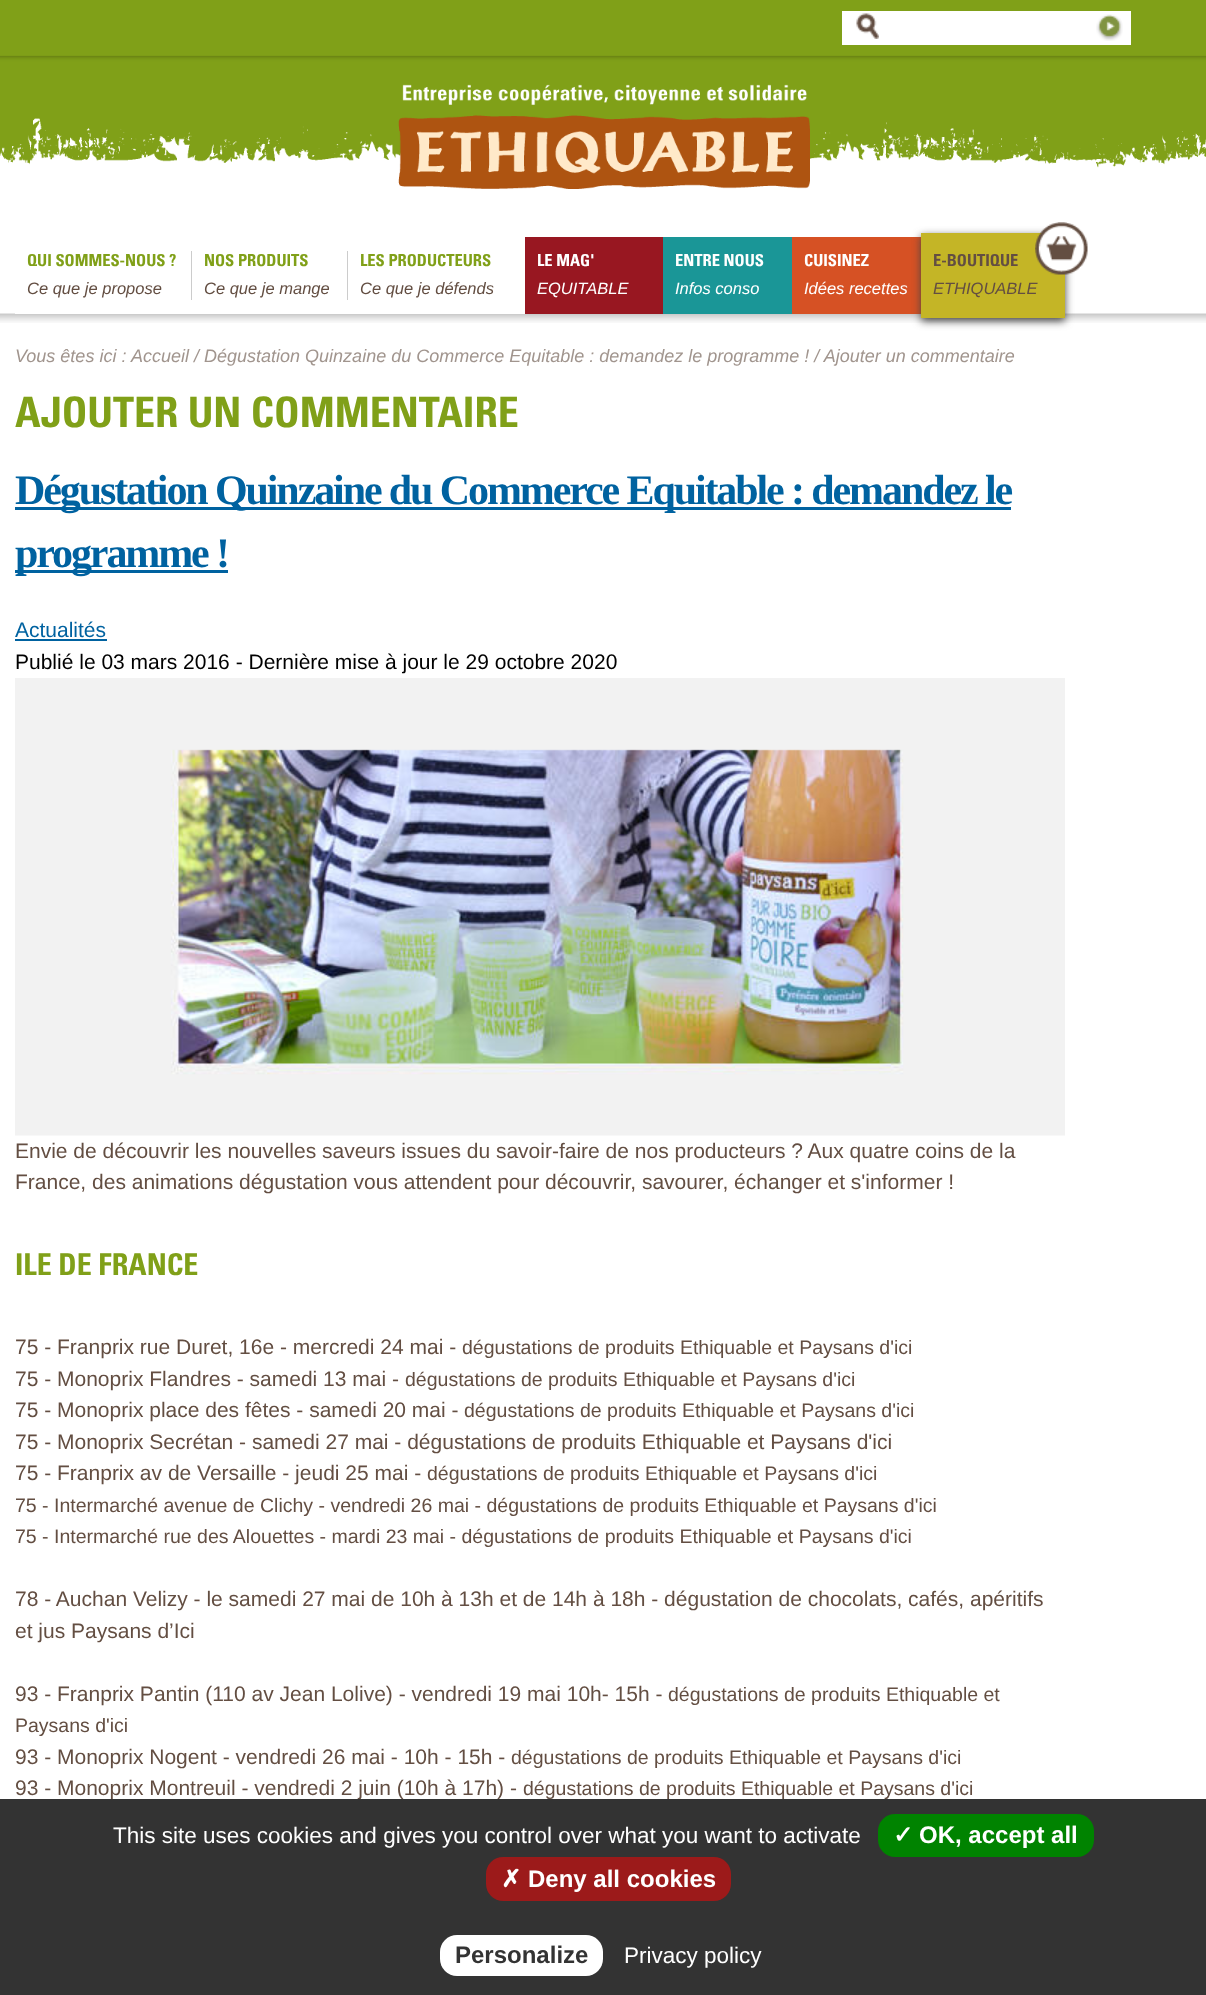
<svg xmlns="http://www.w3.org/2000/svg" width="1206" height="1995">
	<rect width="100%" height="100%" fill="#FFFFFF" />
	<image x="0" y="0" width="1206" height="168" href="assets/img1.png" />
	<rect x="842" y="11" width="289" height="34" fill="#FFFFFF" />
	<image x="856" y="13" width="23" height="26" href="assets/img2.png" />
	<image x="1096" y="14" width="27" height="27" href="assets/img3.png" />
	<image x="398" y="84" width="412" height="105" href="assets/img4.png" />
	<image x="0" y="313" width="1206" height="10" href="assets/img5.png" />
	<rect x="15" y="313" width="510" height="1" fill="#FFFFFF" />
	<rect x="191" y="251" width="1" height="49" fill="#CCCCCC" />
	<text x="27" y="266" font-family="Univers" font-size="16.5" font-weight="700" fill="#80A018">QUI SOMMES-NOUS ?</text>
	<text x="27" y="294" font-family="Liberation Sans" font-size="16.5" font-style="italic" fill="#634E42">Ce que je propose</text>
	<rect x="347" y="251" width="1" height="49" fill="#CCCCCC" />
	<text x="204" y="266" font-family="Univers" font-size="16.5" font-weight="700" fill="#80A018">NOS PRODUITS</text>
	<text x="204" y="294" font-family="Liberation Sans" font-size="16.5" font-style="italic" fill="#634E42">Ce que je mange</text>
	<text x="360" y="266" font-family="Univers" font-size="16.5" font-weight="700" fill="#80A018">LES PRODUCTEURS</text>
	<text x="360" y="294" font-family="Liberation Sans" font-size="16.5" font-style="italic" fill="#634E42">Ce que je défends</text>
	<rect x="525" y="237" width="138" height="77" fill="#981721" />
	<text x="537" y="266" font-family="Univers" font-size="16.5" font-weight="700" fill="#FFFFFF">LE MAG'</text>
	<text x="537" y="294" font-family="Liberation Sans" font-size="16.5" font-style="italic" fill="#FFFFFF">EQUITABLE</text>
	<rect x="663" y="237" width="129" height="77" fill="#1A9697" />
	<text x="675" y="266" font-family="Univers" font-size="16.5" font-weight="700" fill="#FFFFFF">ENTRE NOUS</text>
	<text x="675" y="294" font-family="Liberation Sans" font-size="16.5" font-style="italic" fill="#FFFFFF">Infos conso</text>
	<rect x="792" y="237" width="129" height="77" fill="#D65124" />
	<text x="804" y="266" font-family="Univers" font-size="16.5" font-weight="700" fill="#FFFFFF">CUISINEZ</text>
	<text x="804" y="294" font-family="Liberation Sans" font-size="16.5" font-style="italic" fill="#FFFFFF">Idées recettes</text>
	<rect x="921" y="236" width="144" height="85" fill="#454545" filter="blur(4px)" />
	<rect x="921" y="233" width="144" height="85" fill="#C4B526" />
	<text x="933" y="266" font-family="Univers" font-size="16.5" font-weight="700" fill="#634E42">E-BOUTIQUE</text>
	<text x="933" y="294" font-family="Liberation Sans" font-size="16.5" font-style="italic" fill="#634E42">ETHIQUABLE</text>
	<image x="1035" y="222" width="53" height="53" href="assets/img6.png" />
	<g font-family="Liberation Sans" font-size="18" font-style="italic" fill="#A1958E">
		<text x="15" y="362">Vous êtes ici :</text>
		<text x="131" y="362">Accueil / Dégustation Quinzaine du Commerce Equitable : demandez le programme ! / Ajouter un commentaire</text>
	</g>
	<text x="15" y="427" font-family="Univers" font-size="42" font-weight="700" fill="#80A018">AJOUTER UN COMMENTAIRE</text>
	<rect x="15" y="507" width="996" height="3" fill="#0062A0" />
	<text x="15" y="504" font-family="Liberation Serif" font-size="42" font-weight="700" letter-spacing="-2.1" fill="#0062A0">Dégustation Quinzaine du Commerce Equitable : demandez le</text>
	<rect x="15" y="570" width="213" height="3" fill="#0062A0" />
	<text x="15" y="567" font-family="Liberation Serif" font-size="42" font-weight="700" letter-spacing="-2.1" fill="#0062A0">programme !</text>
	<text x="15" y="637" font-family="Liberation Sans" font-size="21" fill="#0062A0">Actualités</text>
	<rect x="15" y="639" width="92" height="2" fill="#0062A0" />
	<text x="15" y="669" font-family="Liberation Sans" font-size="21" fill="#000000">Publié le 03 mars 2016 - Dernière mise à jour le 29 octobre 2020</text>
	<image x="15" y="678" width="1050" height="458" href="assets/img7.png" />
	<g font-family="Liberation Sans" font-size="21" fill="#634E42">
		<text x="15" y="1158">Envie de découvrir les nouvelles saveurs issues du savoir-faire de nos producteurs ? Aux quatre coins de la</text>
		<text x="15" y="1189">France, des animations dégustation vous attendent pour découvrir, savourer, échanger et s'informer !</text>
	</g>
	<text x="15" y="1275" font-family="Univers" font-size="30" font-weight="700" fill="#80A018">ILE DE FRANCE</text>
	<text x="15" y="1354" font-family="Liberation Sans" font-size="21" fill="#634E42">75 - Franprix rue Duret, 16e - mercredi 24 mai -</text>
	<text x="462" y="1354" font-family="Liberation Sans" font-size="19.5" fill="#634E42">dégustations de produits Ethiquable et Paysans d'ici</text>
	<text x="15" y="1386" font-family="Liberation Sans" font-size="21" fill="#634E42">75 - Monoprix Flandres - samedi 13 mai -</text>
	<text x="405" y="1386" font-family="Liberation Sans" font-size="19.5" fill="#634E42">dégustations de produits Ethiquable et Paysans d'ici</text>
	<text x="15" y="1417" font-family="Liberation Sans" font-size="21" fill="#634E42">75 - Monoprix place des fêtes - samedi 20 mai -</text>
	<text x="464" y="1417" font-family="Liberation Sans" font-size="19.5" fill="#634E42">dégustations de produits Ethiquable et Paysans d'ici</text>
	<g font-family="Liberation Sans" font-size="21" fill="#634E42">
		<text x="15" y="1449">75 - Monoprix Secrétan - samedi 27 mai - dégustations de produits Ethiquable et Paysans d'ici</text>
		<text x="15" y="1480">75 - Franprix av de Versaille - jeudi 25 mai -</text>
	</g>
	<g font-family="Liberation Sans" font-size="19.5" fill="#634E42">
		<text x="427" y="1480">dégustations de produits Ethiquable et Paysans d'ici</text>
		<text x="15" y="1512">75 - Intermarché avenue de Clichy - vendredi 26 mai - dégustations de produits Ethiquable et Paysans d'ici</text>
		<text x="15" y="1543">75 - Intermarché rue des Alouettes - mardi 23 mai - dégustations de produits Ethiquable et Paysans d'ici</text>
	</g>
	<g font-family="Liberation Sans" font-size="21" fill="#634E42">
		<text x="15" y="1606">78 - Auchan Velizy - le samedi 27 mai de 10h à 13h et de 14h à 18h - dégustation de chocolats, cafés, apéritifs</text>
		<text x="15" y="1638">et jus Paysans d’Ici</text>
		<text x="15" y="1701">93 - Franprix Pantin (110 av Jean Lolive) - vendredi 19 mai 10h- 15h -</text>
	</g>
	<g font-family="Liberation Sans" font-size="19.5" fill="#634E42">
		<text x="668" y="1701">dégustations de produits Ethiquable et</text>
		<text x="15" y="1732">Paysans d'ici</text>
	</g>
	<text x="15" y="1764" font-family="Liberation Sans" font-size="21" fill="#634E42">93 - Monoprix Nogent - vendredi 26 mai - 10h - 15h -</text>
	<text x="511" y="1764" font-family="Liberation Sans" font-size="19.5" fill="#634E42">dégustations de produits Ethiquable et Paysans d'ici</text>
	<text x="15" y="1795" font-family="Liberation Sans" font-size="21" fill="#634E42">93 - Monoprix Montreuil - vendredi 2 juin (10h à 17h) -</text>
	<text x="523" y="1795" font-family="Liberation Sans" font-size="19.5" fill="#634E42">dégustations de produits Ethiquable et Paysans d'ici</text>
	<rect x="0" y="1799" width="1206" height="196" fill="#333333" />
	<text x="113" y="1843" font-family="Liberation Sans" font-size="22.5" fill="#FFFFFF">This site uses cookies and gives you control over what you want to activate</text>
	<rect x="878" y="1814" width="216" height="43" rx="17" fill="#008300" />
	<text x="893" y="1843" font-family="DejaVu Sans" font-size="24" font-weight="700" fill="#FFFFFF">✓</text>
	<text x="919" y="1843" font-family="Liberation Sans" font-size="24" font-weight="700" fill="#FFFFFF">OK, accept all</text>
	<rect x="486" y="1857" width="245" height="44" rx="17" fill="#9C1A1A" />
	<text x="501" y="1887" font-family="DejaVu Sans" font-size="24" font-weight="700" fill="#FFFFFF">✗</text>
	<text x="528" y="1887" font-family="Liberation Sans" font-size="24" font-weight="700" fill="#FFFFFF">Deny all cookies</text>
	<rect x="440" y="1935" width="163" height="41" rx="17" fill="#FFFFFF" />
	<text x="455" y="1963" font-family="Liberation Sans" font-size="24" font-weight="700" fill="#333333">Personalize</text>
	<text x="624" y="1963" font-family="Liberation Sans" font-size="22.5" fill="#FFFFFF">Privacy policy</text>
</svg>
